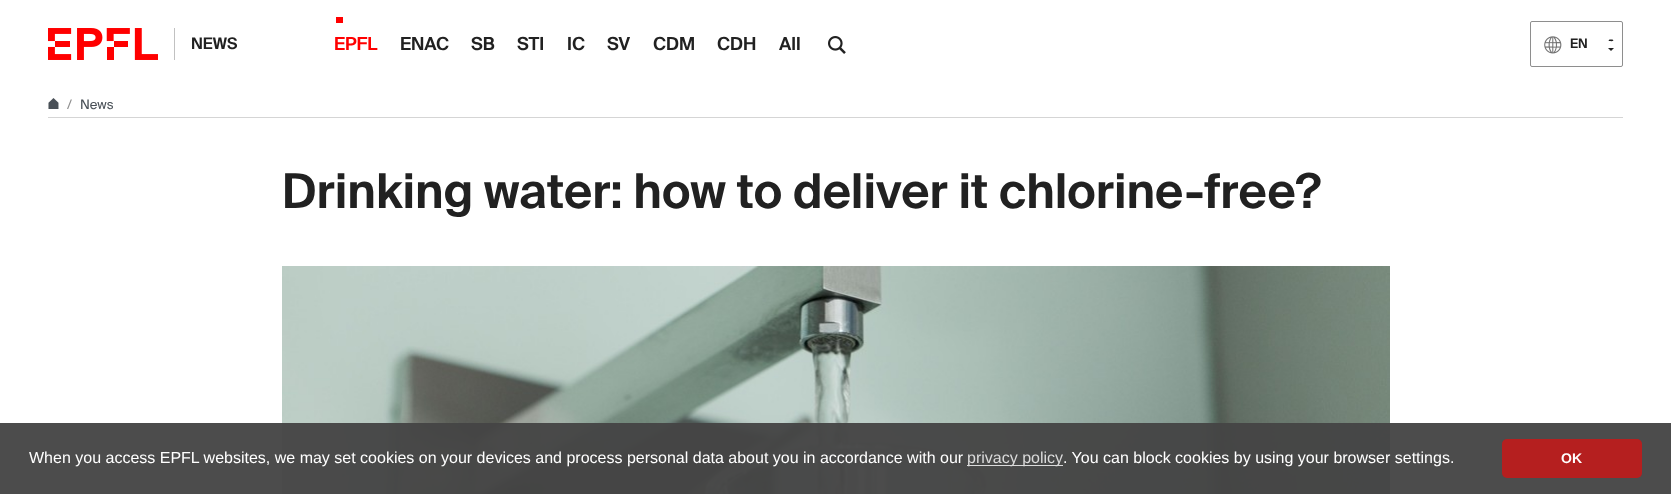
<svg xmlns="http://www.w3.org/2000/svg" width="1671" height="494">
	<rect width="100%" height="100%" fill="#FFFFFF" />
	<rect x="174" y="28" width="1" height="32" fill="#C1C1C1" />
	<image x="48" y="28" width="110" height="32" href="assets/img1.png" />
	<text x="191" y="49" font-family="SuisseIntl" font-size="16" font-weight="600" fill="#212121">NEWS</text>
	<rect x="336" y="17" width="7" height="6" fill="#FF0000" />
	<text x="334" y="50" font-family="SuisseIntl" font-size="18" font-weight="600" fill="#FF0000">EPFL</text>
	<g font-family="SuisseIntl" font-size="18" font-weight="600" fill="#212121">
		<text x="400" y="50">ENAC</text>
		<text x="471" y="50">SB</text>
		<text x="517" y="50">STI</text>
		<text x="567" y="50">IC</text>
		<text x="607" y="50">SV</text>
		<text x="653" y="50">CDM</text>
		<text x="717" y="50">CDH</text>
		<text x="779" y="50">All</text>
	</g>
	<image x="828" y="36" width="18" height="18" href="assets/img2.png" />
	<rect x="1530.5" y="21.5" width="92" height="45" rx="1.5" fill="none" stroke="#8E8E8E" />
	<image x="1544" y="36" width="18" height="18" href="assets/img3.png" />
	<text x="1570" y="48" font-family="SuisseIntl" font-size="13" font-weight="600" fill="#212121">EN</text>
	<path d="M1609 41C1610.5 41 1612.5 41.5 1613.5 40.5L1612.5 39.5H1609.5L1608.5 40.5Z" fill="#212121" />
	<path d="M1608 48H1614L1611 51Z" fill="#212121" />
	<rect x="48" y="117" width="1575" height="1" fill="#D5D5D5" />
	<image x="48" y="98" width="11" height="11" href="assets/img4.png" />
	<text x="67" y="109" font-family="SuisseIntl" font-size="13" fill="#8E8E8E">/</text>
	<text x="80" y="109" font-family="SuisseIntl" font-size="13" fill="#495057">News</text>
	<text x="282" y="208" font-family="SuisseIntl" font-size="48" font-weight="600" fill="#212121">Drinking water: how to deliver it chlorine-free?</text>
	<image x="282" y="266" width="1108" height="228" href="assets/img5.png" />
	<rect x="0" y="423" width="1671" height="71" fill="#454545" fill-opacity="0.96" />
	<text x="29" y="463" font-family="Liberation Sans" font-size="16" fill="#FFFFFF">When you access EPFL websites, we may set cookies on your devices and process personal data about you in accordance with our</text>
	<rect x="967" y="465" width="96" height="1" fill="#DBDBDB" />
	<text x="967" y="463" font-family="Liberation Sans" font-size="16" fill="#DBDBDB">privacy policy</text>
	<text x="1063" y="463" font-family="Liberation Sans" font-size="16" fill="#FFFFFF">. You can block cookies by using your browser settings.</text>
	<rect x="1502" y="439" width="140" height="39" rx="5" fill="#B51F1F" />
	<text x="1561" y="463" font-family="Liberation Sans" font-size="14" font-weight="700" fill="#FFFFFF">OK</text>
</svg>
